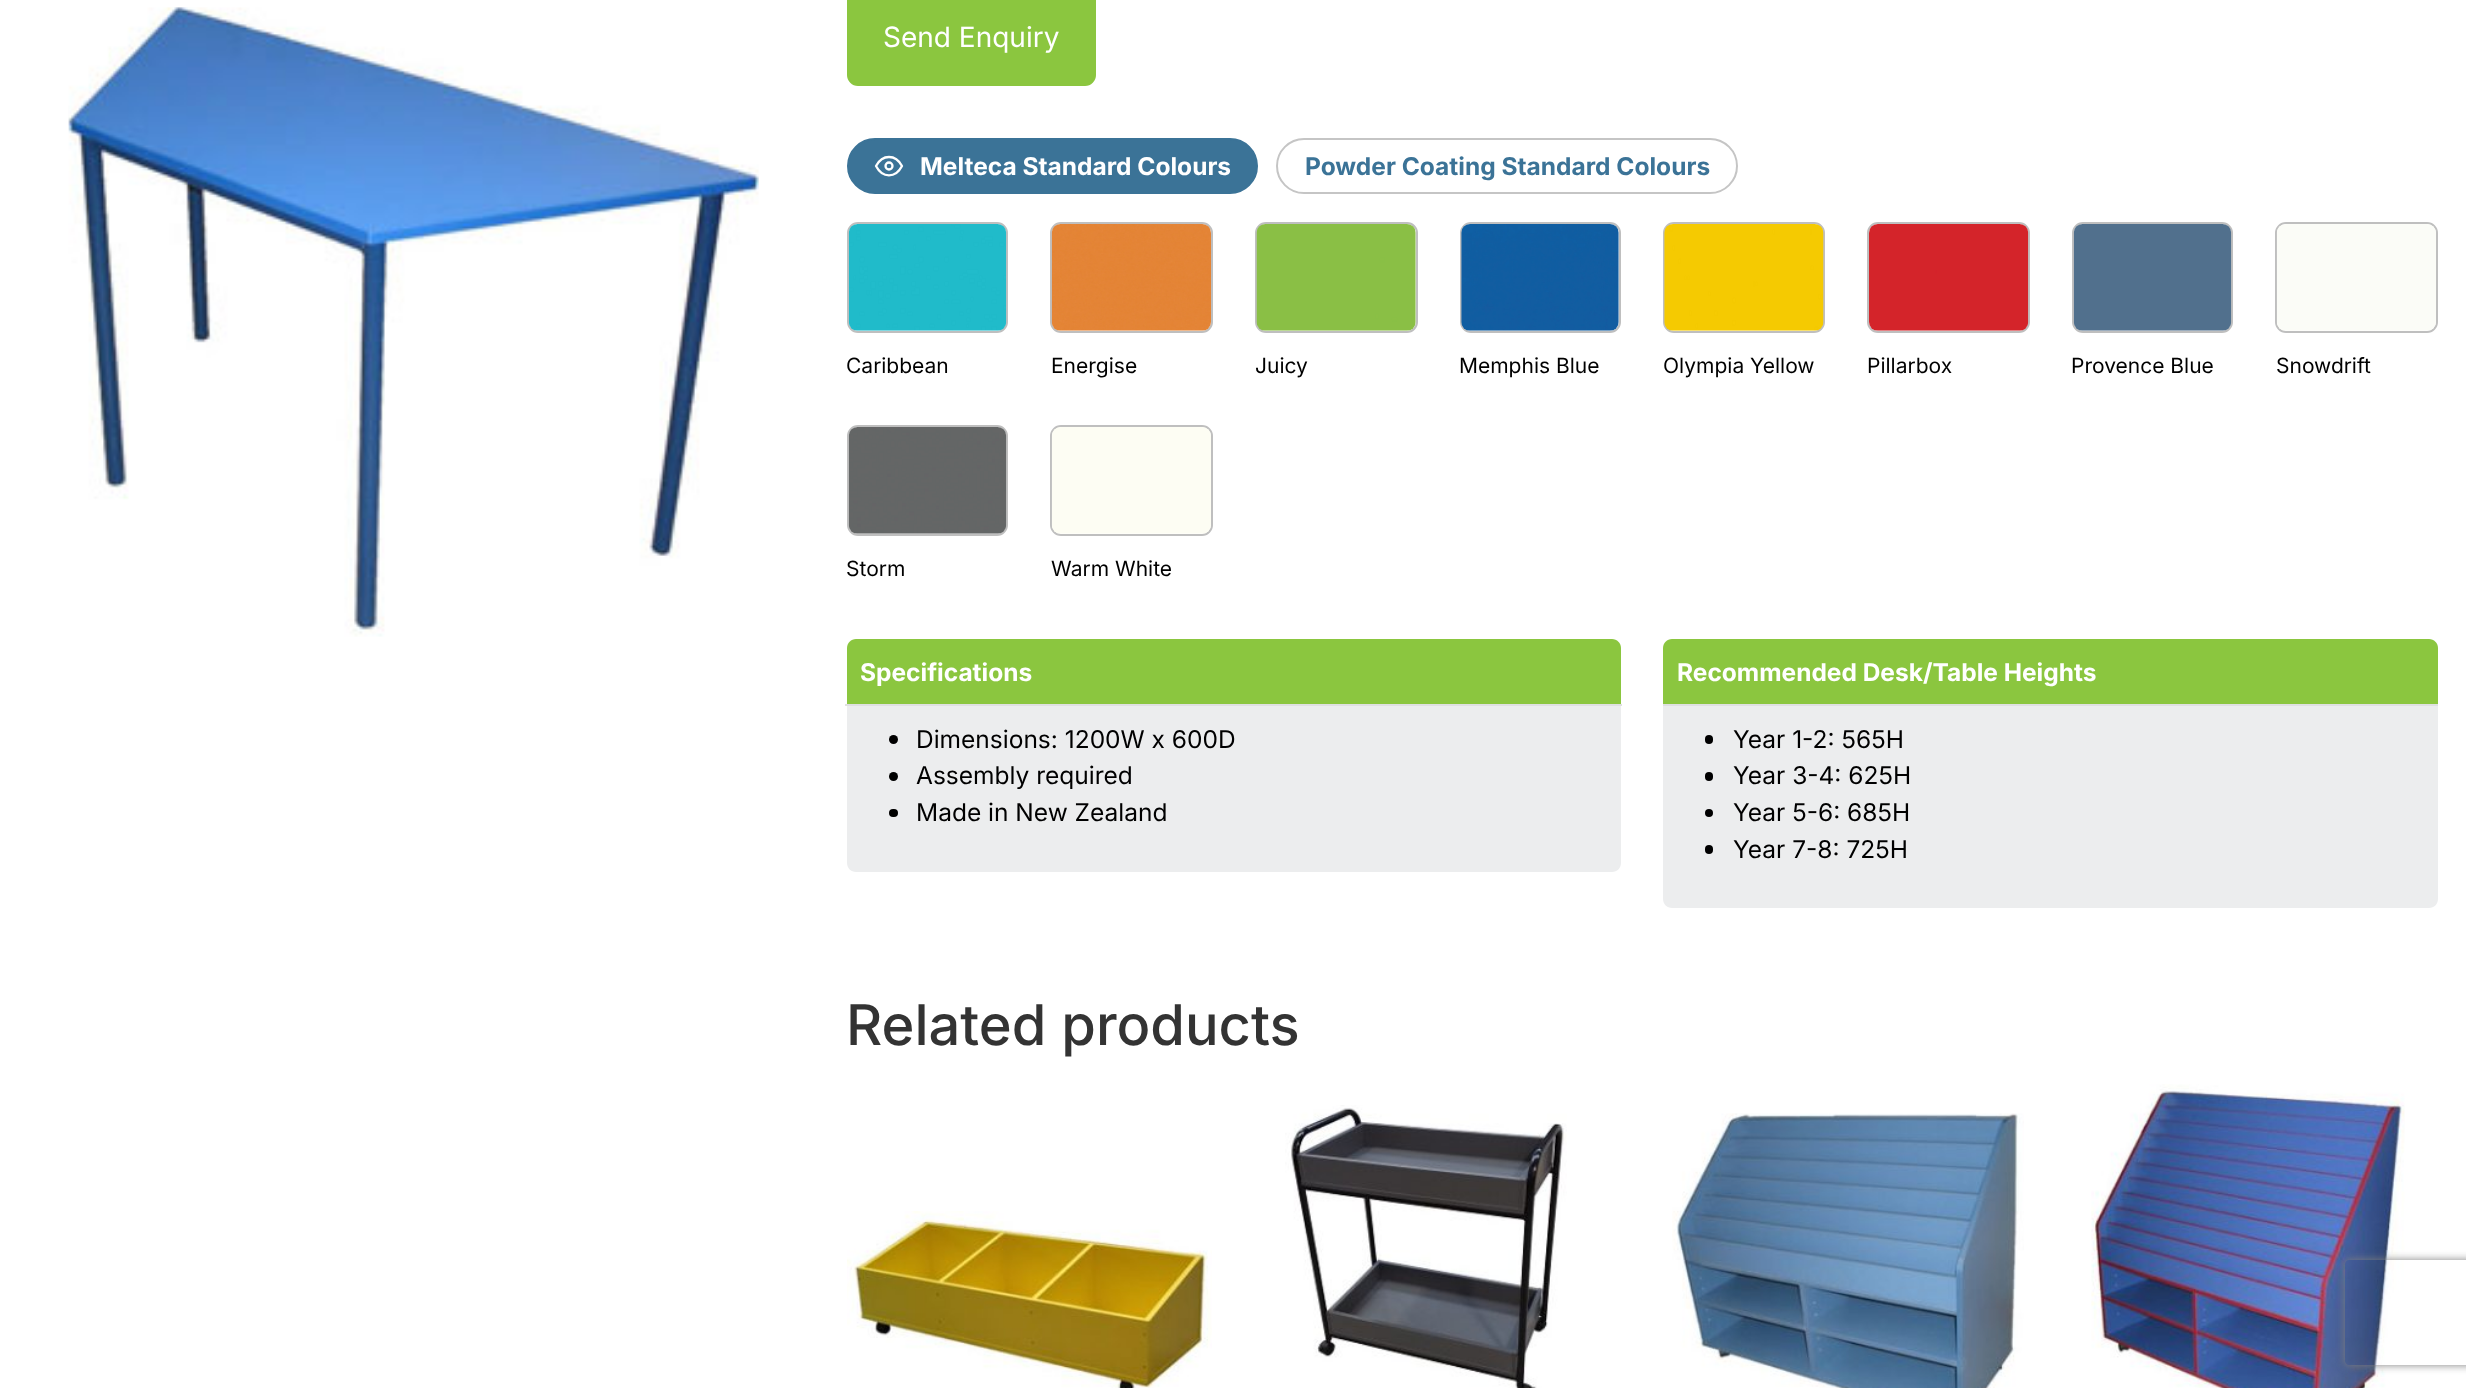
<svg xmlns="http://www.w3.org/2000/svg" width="2466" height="1388">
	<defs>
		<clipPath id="clip1"><path d="M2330 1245H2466V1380H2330ZM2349 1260H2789C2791 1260 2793 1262 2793 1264V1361C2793 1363 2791 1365 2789 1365H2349C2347 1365 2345 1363 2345 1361V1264C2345 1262 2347 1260 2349 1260Z" clip-rule="evenodd" /></clipPath>
	</defs>
	<rect width="100%" height="100%" fill="#FFFFFF" />
	<image x="68" y="7" width="691" height="630" href="assets/img1.png" />
	<rect x="848" y="-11" width="247" height="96" rx="10" fill="#8BC63F" stroke="#8BC63F" stroke-width="2" />
	<text x="883" y="47" font-family="Inter" font-size="28" fill="#FFFFFF">Send Enquiry</text>
	<rect x="848" y="139" width="409" height="54" rx="27" fill="#3B7397" stroke="#3B7397" stroke-width="2" />
	<path d="M876 166C882.5 154 895.5 154 902 166C895.5 178.5 882.5 178.5 876 166Z" fill="none" stroke="#FFFFFF" stroke-width="2.3" stroke-linecap="round" stroke-linejoin="round" />
	<circle cx="889" cy="166" r="3.5" fill="none" stroke="#FFFFFF" stroke-width="2.3" />
	<text x="920" y="175" font-family="Inter" font-size="24.5" font-weight="700" fill="#FFFFFF">Melteca Standard Colours</text>
	<rect x="1277" y="139" width="460" height="54" rx="27" fill="none" stroke="#C5C5C5" stroke-width="2" />
	<text x="1305" y="175" font-family="Inter" font-size="24.5" font-weight="700" fill="#3B7397">Powder Coating Standard Colours</text>
	<rect x="848" y="223" width="159" height="109" rx="10" fill="none" stroke="#BFBFBF" stroke-width="2" />
	<image x="848" y="224" width="159" height="107" href="assets/img2.png" />
	<text x="846" y="373" font-family="Inter" font-size="21" fill="#000000">Caribbean</text>
	<rect x="1051" y="223" width="161" height="109" rx="10" fill="none" stroke="#BFBFBF" stroke-width="2" />
	<image x="1051" y="224" width="160" height="107" href="assets/img3.png" />
	<text x="1051" y="373" font-family="Inter" font-size="21" fill="#000000">Energise</text>
	<rect x="1256" y="223" width="161" height="109" rx="10" fill="none" stroke="#BFBFBF" stroke-width="2" />
	<image x="1256" y="224" width="160" height="107" href="assets/img4.png" />
	<text x="1255" y="373" font-family="Inter" font-size="21" fill="#000000">Juicy</text>
	<rect x="1461" y="223" width="159" height="109" rx="10" fill="none" stroke="#BFBFBF" stroke-width="2" />
	<image x="1461" y="224" width="158" height="107" href="assets/img5.png" />
	<text x="1459" y="373" font-family="Inter" font-size="21" fill="#000000">Memphis Blue</text>
	<rect x="1664" y="223" width="160" height="109" rx="10" fill="none" stroke="#BFBFBF" stroke-width="2" />
	<image x="1664" y="224" width="160" height="107" href="assets/img6.png" />
	<text x="1663" y="373" font-family="Inter" font-size="21" fill="#000000">Olympia Yellow</text>
	<rect x="1868" y="223" width="161" height="109" rx="10" fill="none" stroke="#BFBFBF" stroke-width="2" />
	<image x="1869" y="224" width="160" height="107" href="assets/img7.png" />
	<text x="1867" y="373" font-family="Inter" font-size="21" fill="#000000">Pillarbox</text>
	<rect x="2073" y="223" width="159" height="109" rx="10" fill="none" stroke="#BFBFBF" stroke-width="2" />
	<image x="2073" y="224" width="159" height="107" href="assets/img8.png" />
	<text x="2071" y="373" font-family="Inter" font-size="21" fill="#000000">Provence Blue</text>
	<rect x="2276" y="223" width="161" height="109" rx="10" fill="none" stroke="#BFBFBF" stroke-width="2" />
	<image x="2276" y="224" width="160" height="107" href="assets/img9.png" />
	<text x="2276" y="373" font-family="Inter" font-size="21" fill="#000000">Snowdrift</text>
	<rect x="848" y="426" width="159" height="109" rx="10" fill="none" stroke="#BFBFBF" stroke-width="2" />
	<image x="848" y="427" width="159" height="107" href="assets/img10.png" />
	<text x="846" y="576" font-family="Inter" font-size="21" fill="#000000">Storm</text>
	<rect x="1051" y="426" width="161" height="109" rx="10" fill="none" stroke="#BFBFBF" stroke-width="2" />
	<image x="1051" y="427" width="160" height="107" href="assets/img11.png" />
	<text x="1051" y="576" font-family="Inter" font-size="21" fill="#000000">Warm White</text>
	<path d="M856 639H1612C1617 639 1621 643 1621 648V704H847V648C847 643 851 639 856 639Z" fill="#8BC63F" />
	<path d="M847 705H1621V863C1621 868 1617 872 1612 872H856C851 872 847 868 847 863Z" fill="#ECEDEE" />
	<rect x="845" y="704" width="777" height="2" fill="#DFE0E1" />
	<text x="860" y="681" font-family="Inter" font-size="24.5" font-weight="700" fill="#FFFFFF">Specifications</text>
	<circle cx="893.5" cy="739.5" r="4.5" fill="#000000" />
	<text x="916" y="748" font-family="Inter" font-size="24.5" fill="#000000">Dimensions: 1200W x 600D</text>
	<circle cx="893.5" cy="776.5" r="4.5" fill="#000000" />
	<text x="916" y="784" font-family="Inter" font-size="24.5" fill="#000000">Assembly required</text>
	<rect x="889" y="809" width="9" height="8" rx="4" fill="#000000" />
	<text x="916" y="821" font-family="Inter" font-size="24.5" fill="#000000">Made in New Zealand</text>
	<path d="M1672 639H2429C2434 639 2438 643 2438 648V704H1663V648C1663 643 1667 639 1672 639Z" fill="#8BC63F" />
	<path d="M1663 705H2438V899C2438 904 2434 908 2429 908H1672C1667 908 1663 904 1663 899Z" fill="#ECEDEE" />
	<rect x="1663" y="704" width="775" height="2" fill="#DFE0E1" />
	<text x="1677" y="681" font-family="Inter" font-size="24.5" font-weight="700" fill="#FFFFFF">Recommended Desk/Table Heights</text>
	<rect x="1705" y="735" width="8" height="9" rx="4" fill="#000000" />
	<text x="1733" y="748" font-family="Inter" font-size="24.5" fill="#000000">Year 1-2: 565H</text>
	<rect x="1705" y="772" width="8" height="9" rx="4" fill="#000000" />
	<text x="1733" y="784" font-family="Inter" font-size="24.5" fill="#000000">Year 3-4: 625H</text>
	<circle cx="1709" cy="813" r="4" fill="#000000" />
	<text x="1733" y="821" font-family="Inter" font-size="24.5" fill="#000000">Year 5-6: 685H</text>
	<rect x="1705" y="845" width="8" height="9" rx="4" fill="#000000" />
	<text x="1733" y="858" font-family="Inter" font-size="24.5" fill="#000000">Year 7-8: 725H</text>
	<text x="846" y="1045" font-family="Inter" font-size="56" font-weight="500" fill="#333333">Related products</text>
	<image x="847" y="1211" width="365" height="177" href="assets/img12.png" />
	<image x="1285" y="1105" width="282" height="283" href="assets/img13.png" />
	<image x="1672" y="1113" width="352" height="275" href="assets/img14.png" />
	<image x="2091" y="1084" width="314" height="304" href="assets/img15.png" />
	<g clip-path="url(#clip1)">
		<rect x="2345" y="1260" width="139" height="105" rx="4" fill="#808080" filter="blur(4.5px)" />
	</g>
</svg>
